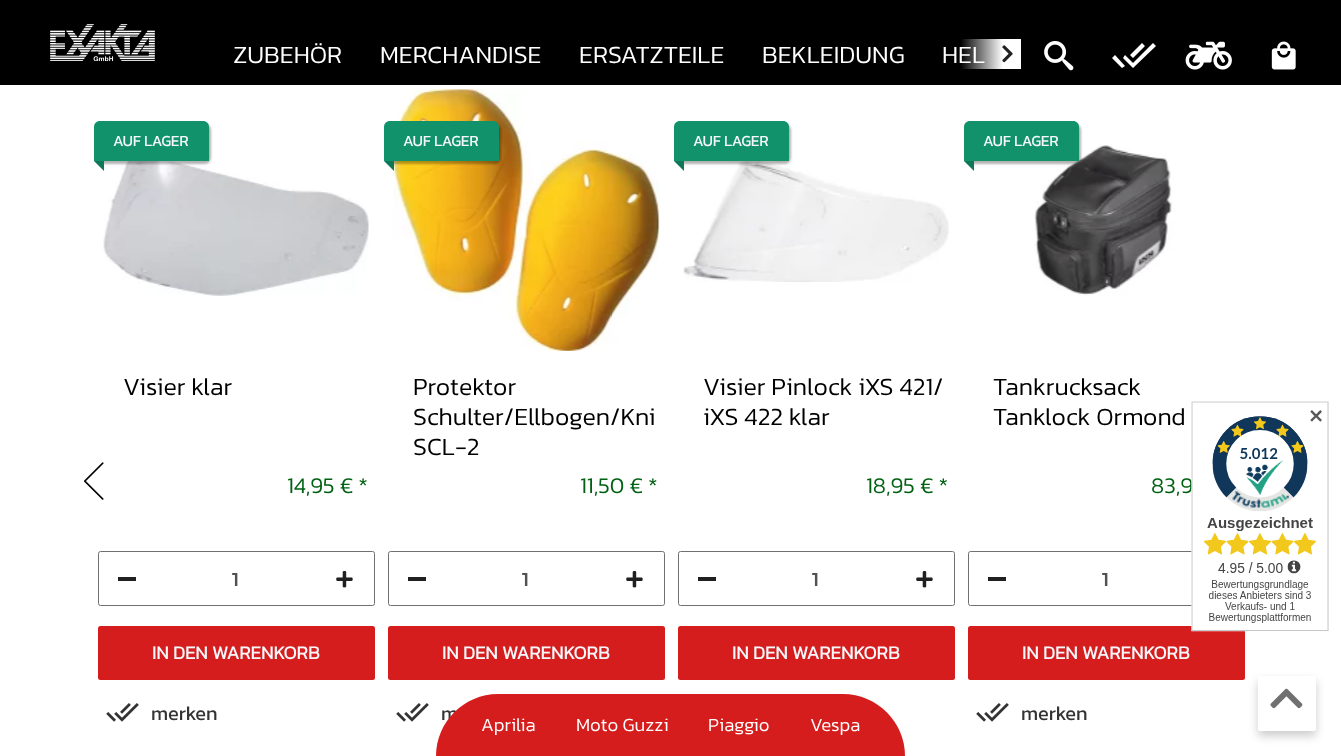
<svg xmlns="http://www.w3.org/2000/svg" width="1341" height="756">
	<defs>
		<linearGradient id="g1" gradientUnits="userSpaceOnUse" x1="961" y1="54" x2="1021" y2="54"><stop offset="0" stop-color="#FFFFFF" stop-opacity="0.01" /><stop offset="0.7" stop-color="#FFFFFF" /></linearGradient>
	</defs>
	<rect width="100%" height="100%" fill="#FFFFFF" />
	<rect x="0" y="0" width="1341" height="85" fill="#000000" />
	<image x="50" y="24" width="105" height="37" href="assets/img1.png" />
	<g font-family="Kanit" font-size="25" font-weight="300" fill="#FFFFFF">
		<text x="233" y="63">ZUBEHÖR</text>
		<text x="380" y="63">MERCHANDISE</text>
		<text x="579" y="63">ERSATZTEILE</text>
		<text x="762" y="63">BEKLEIDUNG</text>
		<text x="942" y="63">HEL</text>
	</g>
	<rect x="961" y="39" width="60" height="30" fill="url(#g1)" />
	<image x="1002" y="45" width="11" height="18" href="assets/img2.png" />
	<image x="1044" y="41" width="30" height="30" href="assets/img3.png" />
	<path d="M1145 46L1142 43L1130 55L1133 58ZM1153 43L1133 63L1125 55L1123 58L1133 68L1156 46ZM1112 58L1122 68L1125 66L1115 55Z" fill="#FFFFFF" />
	<image x="1185" y="41" width="47" height="29" href="assets/img4.png" />
	<image x="1271" y="41" width="25" height="29" href="assets/img5.png" />
	<image x="84" y="462" width="20" height="38" href="assets/img6.png" />
	<image x="103" y="145" width="266" height="151" href="assets/img7.png" />
	<rect x="96" y="124" width="115" height="40" rx="6" fill="#000000" fill-opacity="0.3" filter="blur(1px)" />
	<path d="M100 121H203C206.5 121 209 123.5 209 127V161H94V127C94 123.5 96.5 121 100 121Z" fill="#11926B" />
	<text x="113" y="146" font-family="Kanit" font-size="15" font-weight="700" fill="#F5F7FA">AUF LAGER</text>
	<path d="M104 161V171L94 161Z" fill="#0E7757" />
	<text x="123" y="395" font-family="Kanit" font-size="25" font-weight="300" fill="#000000">Visier klar</text>
	<text x="287" y="493" font-family="Kanit" font-size="22.5" font-weight="300" fill="#006113">14,95 € *</text>
	<rect x="98.5" y="551.5" width="276" height="54" rx="2" fill="none" stroke="#707070" />
	<rect x="118" y="577" width="18" height="4" fill="#202020" />
	<text x="232" y="586" font-family="Montserrat" font-size="18.75" font-weight="600" fill="#525252">1</text>
	<image x="336" y="571" width="17" height="17" href="assets/img8.png" />
	<rect x="98" y="626" width="277" height="54" rx="2.5" fill="#D61D1D" />
	<text x="152" y="659" font-family="Kanit" font-size="18.75" font-weight="700" fill="#F5F7FA">IN DEN WARENKORB</text>
	<image x="106" y="703" width="33" height="19" href="assets/img9.png" />
	<text x="151" y="720" font-family="Kanit" font-size="20" fill="#333333">merken</text>
	<image x="393" y="89" width="267" height="262" href="assets/img10.png" />
	<rect x="386" y="124" width="115" height="40" rx="6" fill="#000000" fill-opacity="0.3" filter="blur(1px)" />
	<path d="M390 121H493C496.5 121 499 123.5 499 127V161H384V127C384 123.5 386.5 121 390 121Z" fill="#11926B" />
	<text x="403" y="146" font-family="Kanit" font-size="15" font-weight="700" fill="#F5F7FA">AUF LAGER</text>
	<path d="M394 161V171L384 161Z" fill="#0E7757" />
	<g font-family="Kanit" font-size="25" font-weight="300" fill="#000000">
		<text x="413" y="395">Protektor</text>
		<text x="413" y="425">Schulter/Ellbogen/Kni</text>
		<text x="413" y="455">SCL-2</text>
	</g>
	<text x="580" y="493" font-family="Kanit" font-size="22.5" font-weight="300" fill="#006113">11,50 € *</text>
	<rect x="388.5" y="551.5" width="276" height="54" rx="2" fill="none" stroke="#707070" />
	<rect x="408" y="577" width="18" height="4" fill="#202020" />
	<text x="522" y="586" font-family="Montserrat" font-size="18.75" font-weight="600" fill="#525252">1</text>
	<image x="626" y="571" width="17" height="17" href="assets/img8.png" />
	<rect x="388" y="626" width="277" height="54" rx="2.5" fill="#D61D1D" />
	<text x="442" y="659" font-family="Kanit" font-size="18.75" font-weight="700" fill="#F5F7FA">IN DEN WARENKORB</text>
	<image x="396" y="703" width="33" height="19" href="assets/img9.png" />
	<text x="441" y="720" font-family="Kanit" font-size="20" fill="#333333">m</text>
	<image x="683" y="159" width="266" height="123" href="assets/img11.png" />
	<rect x="676" y="124" width="115" height="40" rx="6" fill="#000000" fill-opacity="0.3" filter="blur(1px)" />
	<path d="M680 121H783C786.5 121 789 123.5 789 127V161H674V127C674 123.5 676.5 121 680 121Z" fill="#11926B" />
	<text x="693" y="146" font-family="Kanit" font-size="15" font-weight="700" fill="#F5F7FA">AUF LAGER</text>
	<path d="M684 161V171L674 161Z" fill="#0E7757" />
	<g font-family="Kanit" font-size="25" font-weight="300" fill="#000000">
		<text x="703" y="395">Visier Pinlock iXS 421/</text>
		<text x="703" y="425">iXS 422 klar</text>
	</g>
	<text x="866" y="493" font-family="Kanit" font-size="22.5" font-weight="300" fill="#006113">18,95 € *</text>
	<rect x="678.5" y="551.5" width="276" height="54" rx="2" fill="none" stroke="#707070" />
	<rect x="698" y="577" width="18" height="4" fill="#202020" />
	<text x="812" y="586" font-family="Montserrat" font-size="18.75" font-weight="600" fill="#525252">1</text>
	<image x="916" y="571" width="17" height="17" href="assets/img8.png" />
	<rect x="678" y="626" width="277" height="54" rx="2.5" fill="#D61D1D" />
	<text x="732" y="659" font-family="Kanit" font-size="18.75" font-weight="700" fill="#F5F7FA">IN DEN WARENKORB</text>
	<image x="1034" y="144" width="141" height="152" href="assets/img12.png" />
	<rect x="966" y="124" width="115" height="40" rx="6" fill="#000000" fill-opacity="0.3" filter="blur(1px)" />
	<path d="M970 121H1073C1076.5 121 1079 123.5 1079 127V161H964V127C964 123.5 966.5 121 970 121Z" fill="#11926B" />
	<text x="983" y="146" font-family="Kanit" font-size="15" font-weight="700" fill="#F5F7FA">AUF LAGER</text>
	<path d="M974 161V171L964 161Z" fill="#0E7757" />
	<g font-family="Kanit" font-size="25" font-weight="300" fill="#000000">
		<text x="993" y="395">Tankrucksack</text>
		<text x="993" y="425">Tanklock Ormond</text>
	</g>
	<text x="1151" y="493" font-family="Kanit" font-size="22.5" font-weight="300" fill="#006113">83,9</text>
	<rect x="968.5" y="551.5" width="276" height="54" rx="2" fill="none" stroke="#707070" />
	<rect x="988" y="577" width="18" height="4" fill="#202020" />
	<text x="1102" y="586" font-family="Montserrat" font-size="18.75" font-weight="600" fill="#525252">1</text>
	<rect x="968" y="626" width="277" height="54" rx="2.5" fill="#D61D1D" />
	<text x="1022" y="659" font-family="Kanit" font-size="18.75" font-weight="700" fill="#F5F7FA">IN DEN WARENKORB</text>
	<image x="976" y="703" width="33" height="19" href="assets/img9.png" />
	<text x="1021" y="720" font-family="Kanit" font-size="20" fill="#333333">merken</text>
	<image x="1191" y="401" width="138" height="231" href="assets/img13.png" />
	<text x="1308" y="423" font-family="DejaVu Sans" font-size="18.75" font-weight="700" fill="#595959">✕</text>
	<rect x="1258" y="681" width="58" height="55" rx="2.5" fill="#000000" fill-opacity="0.2" filter="blur(5px)" />
	<rect x="1258" y="676" width="58" height="55" rx="2.5" fill="#FFFFFF" />
	<image x="1270" y="688" width="33" height="21" href="assets/img14.png" />
	<path d="M498 694H843C877 694 905 722 905 756H436C436 722 464 694 498 694Z" fill="#D61D1D" />
	<g font-family="Kanit" font-size="18.75" font-weight="300" fill="#FFFFFF">
		<text x="481" y="731">Aprilia</text>
		<text x="576" y="731">Moto Guzzi</text>
		<text x="708" y="731">Piaggio</text>
		<text x="810" y="731">Vespa</text>
	</g>
</svg>
